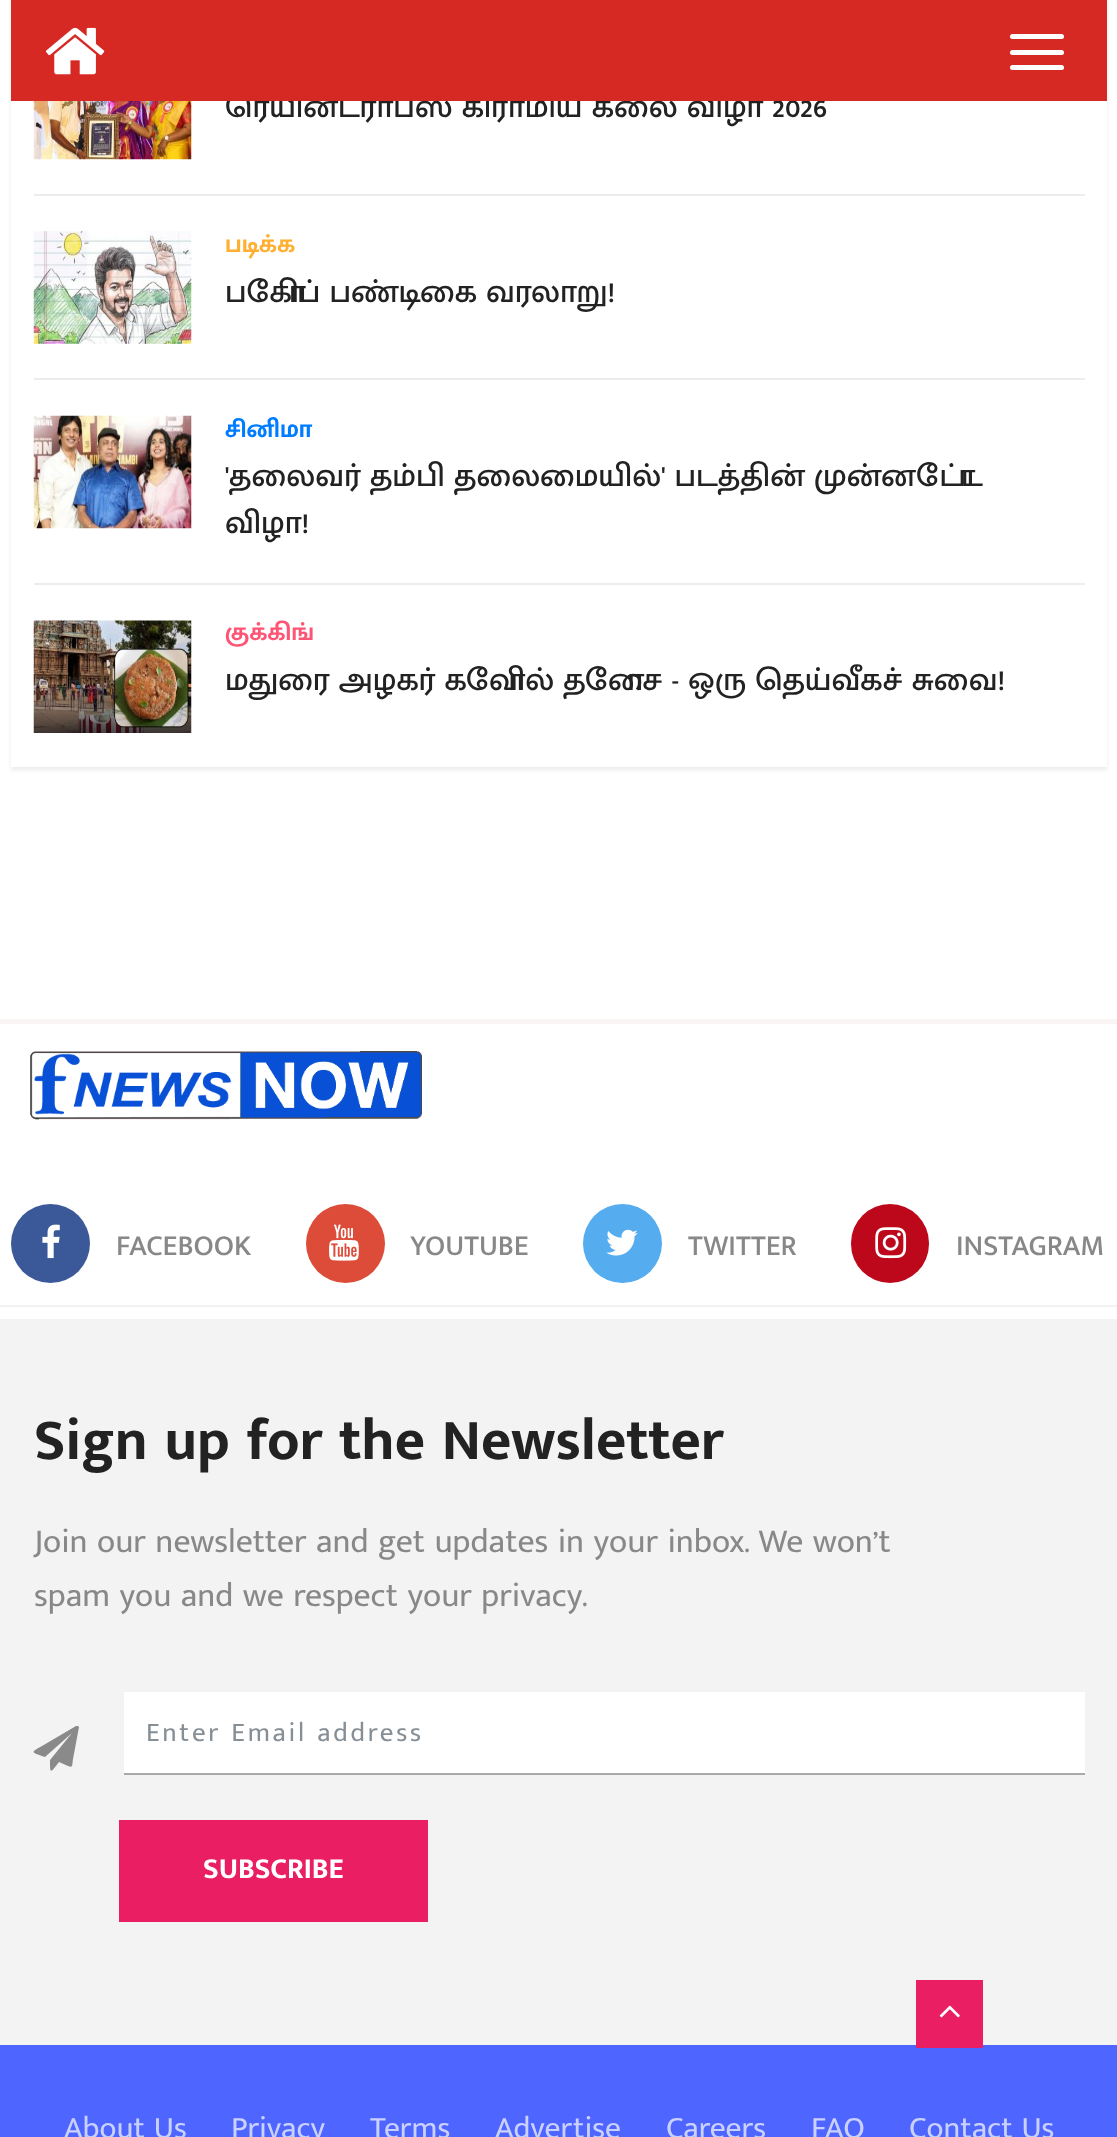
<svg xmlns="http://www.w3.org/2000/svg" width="1117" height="2137">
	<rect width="100%" height="100%" fill="#FFFFFF" />
	<rect x="11" y="-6" width="1096" height="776" fill="#000000" fill-opacity="0.08" filter="blur(2px)" />
	<rect x="11" y="101" width="1096" height="666" fill="#FFFFFF" />
	<text x="225" y="117" font-family="Mukta Malar" font-size="32.4" font-weight="500" fill="#222222">ரெயின்ட்ராப்ஸ் கிராமிய கலை விழா 2026</text>
	<rect x="11" y="0" width="1096" height="101" fill="#D72924" />
	<image x="45" y="27" width="60" height="48" href="assets/img1.png" />
	<rect x="1010" y="65" width="54" height="5" rx="2.5" fill="#FFFFFF" />
	<rect x="1010" y="50" width="54" height="5" rx="2.5" fill="#FFFFFF" />
	<rect x="1010" y="34" width="54" height="5" rx="2.5" fill="#FFFFFF" />
	<rect x="34" y="194" width="1051" height="2" fill="#EDEDED" />
	<image x="33" y="101" width="159" height="59" href="assets/img2.png" />
	<rect x="34" y="378" width="1051" height="2" fill="#EDEDED" />
	<image x="33" y="231" width="159" height="113" href="assets/img3.png" />
	<text x="225" y="252" font-family="Mukta Malar" font-size="25" font-weight="700" fill="#FFAF31">படிக்க</text>
	<text x="225" y="302" font-family="Mukta Malar" font-size="32.4" font-weight="500" fill="#222222">போகிப் பண்டிகை வரலாறு!</text>
	<rect x="34" y="583" width="1051" height="2" fill="#EDEDED" />
	<image x="33" y="415" width="159" height="114" href="assets/img4.png" />
	<text x="225" y="437" font-family="Mukta Malar" font-size="25" font-weight="700" fill="#007DFF">சினிமா</text>
	<g font-family="Mukta Malar" font-size="32.4" font-weight="500" fill="#222222">
		<text x="225" y="486">'தலைவர் தம்பி தலைமையில்' படத்தின் முன்னோட்ட</text>
		<text x="225" y="533">விழா!</text>
	</g>
	<image x="33" y="620" width="159" height="113" href="assets/img5.png" />
	<text x="225" y="640" font-family="Mukta Malar" font-size="25" font-weight="700" fill="#FF5575">குக்கிங்</text>
	<text x="225" y="690" font-family="Mukta Malar" font-size="32.4" font-weight="500" fill="#222222">மதுரை அழகர் கோவில் தோசை - ஒரு தெய்வீகச் சுவை!</text>
	<rect x="0" y="1019" width="1117" height="5" fill="#FAF4F4" />
	<rect x="0" y="1305" width="1117" height="2" fill="#F2F2F2" />
	<image x="29" y="1051" width="393" height="69" href="assets/img6.png" />
	<circle cx="50.5" cy="1243.5" r="39.5" fill="#3B5999" />
	<image x="42" y="1224" width="18" height="35" href="assets/img7.png" />
	<text x="116" y="1255" font-family="Mukta Malar" font-size="29.25" font-weight="500" fill="#888888">FACEBOOK</text>
	<circle cx="345.5" cy="1243.5" r="39.5" fill="#DD4B39" />
	<image x="329" y="1224" width="30" height="37" href="assets/img8.png" />
	<text x="410" y="1255" font-family="Mukta Malar" font-size="29.25" font-weight="500" fill="#888888">YOUTUBE</text>
	<circle cx="622.5" cy="1243.5" r="39.5" fill="#55ACEE" />
	<image x="606" y="1229" width="32" height="27" href="assets/img9.png" />
	<text x="688" y="1255" font-family="Mukta Malar" font-size="29.25" font-weight="500" fill="#888888">TWITTER</text>
	<rect x="851" y="1204" width="78" height="79" rx="39" fill="#BD081C" />
	<image x="875" y="1227" width="32" height="32" href="assets/img10.png" />
	<text x="956" y="1255" font-family="Mukta Malar" font-size="29.25" font-weight="500" fill="#888888">INSTAGRAM</text>
	<rect x="0" y="1319" width="1117" height="726" fill="#F3F3F4" />
	<text x="34" y="1459" font-family="Mukta Malar" font-size="58.5" font-weight="700" fill="#222222">Sign up for the Newsletter</text>
	<g font-family="Mukta Malar" font-size="33.75" fill="#888888">
		<text x="34" y="1552">Join our newsletter and get updates in your inbox. We won’t</text>
		<text x="34" y="1606">spam you and we respect your privacy.</text>
	</g>
	<path d="M78 1726L79 1727L73 1759C72 1766 73 1768 68 1766L59 1762C50 1774 50 1774 50 1760L72 1733L45 1757C32 1752 29 1753 42 1746L76 1726Z" fill="#8A8A8A" />
	<rect x="124" y="1692" width="961" height="81" fill="#FFFFFF" />
	<rect x="124" y="1773" width="961" height="2" fill="#A9A9A9" />
	<text x="146" y="1741" font-family="Mukta Malar" font-size="27" letter-spacing="2.75" fill="#868E96">Enter Email address</text>
	<rect x="119" y="1820" width="309" height="102" fill="#E91E63" />
	<text x="203" y="1878" font-family="Mukta Malar" font-size="29.25" font-weight="700" fill="#FFFFFF">SUBSCRIBE</text>
	<rect x="0" y="2045" width="1117" height="92" fill="#4E65FF" />
	<rect x="916" y="1980" width="67" height="68" fill="#E91E63" />
	<image x="939" y="2005" width="21" height="13" href="assets/img11.png" />
	<g font-family="Mukta Malar" font-size="31.5" fill="#CAD1FF">
		<text x="64" y="2138">About Us</text>
		<text x="231" y="2138">Privacy</text>
		<text x="370" y="2138">Terms</text>
		<text x="495" y="2138">Advertise</text>
		<text x="666" y="2138">Careers</text>
		<text x="811" y="2138">FAQ</text>
		<text x="909" y="2138">Contact Us</text>
	</g>
</svg>
